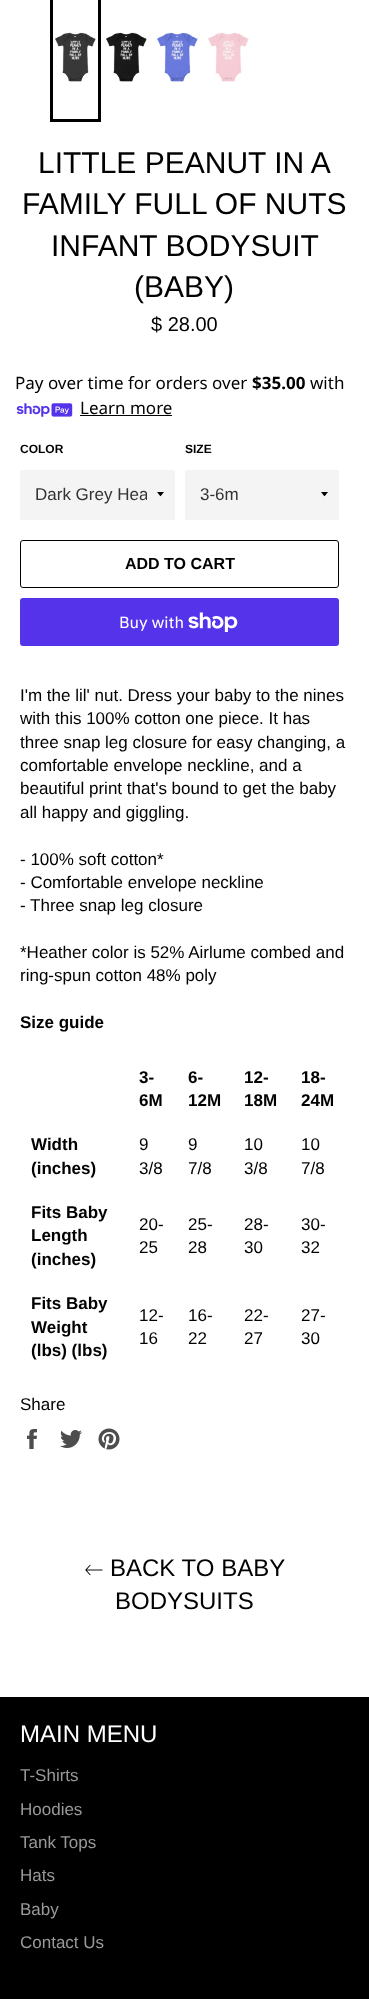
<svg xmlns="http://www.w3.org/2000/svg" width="369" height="1999">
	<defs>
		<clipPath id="clip1"><rect x="35" y="483" width="112" height="24" /></clipPath>
	</defs>
	<rect width="100%" height="100%" fill="#FFFFFF" />
	<image x="55" y="32" width="41" height="50" href="assets/img1.png" />
	<rect x="51.5" y="-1.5" width="48" height="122" fill="none" stroke="#000000" stroke-width="3" />
	<image x="106" y="32" width="41" height="50" href="assets/img2.png" />
	<image x="157" y="32" width="41" height="50" href="assets/img3.png" />
	<image x="208" y="32" width="41" height="51" href="assets/img4.png" />
	<g font-family="Liberation Sans" font-size="30" fill="#000000">
		<text x="38" y="173">LITTLE PEANUT IN A</text>
		<text x="22" y="214">FAMILY FULL OF NUTS</text>
		<text x="51" y="256">INFANT BODYSUIT</text>
		<text x="134" y="297">(BABY)</text>
	</g>
	<text x="151" y="331" font-family="Liberation Sans" font-size="20" fill="#000000">$ 28.00</text>
	<text x="15" y="389" font-family="Noto Sans" font-size="17" fill="#000000">Pay over time for orders over</text>
	<text x="252" y="389" font-family="Noto Sans" font-size="17" font-weight="700" fill="#000000">$35.00</text>
	<text x="310" y="389" font-family="Noto Sans" font-size="17" fill="#000000">with</text>
	<image x="16" y="403" width="57" height="14" href="assets/img5.png" />
	<text x="80" y="414" font-family="Noto Sans" font-size="17" fill="#000000">Learn more</text>
	<rect x="80" y="415" width="92" height="1" fill="#000000" />
	<text x="20" y="453" font-family="Liberation Sans" font-size="12" font-weight="700" fill="#000000">COLOR</text>
	<rect x="20" y="470" width="155" height="50" fill="#F4F4F4" />
	<path d="M157 492C161.5 497.5 159.5 497.5 164 492Z" fill="#000000" />
	<g clip-path="url(#clip1)">
		<text x="35" y="500" font-family="Liberation Sans" font-size="17" fill="#333333">Dark Grey Hea</text>
	</g>
	<text x="185" y="453" font-family="Liberation Sans" font-size="12" font-weight="700" fill="#000000">SIZE</text>
	<rect x="185" y="470" width="154" height="50" fill="#F4F4F4" />
	<path d="M321 492C325.5 497.5 323.5 497.5 328 492Z" fill="#000000" />
	<text x="200" y="500" font-family="Liberation Sans" font-size="17" fill="#333333">3-6m</text>
	<rect x="20.5" y="540.5" width="318" height="47" rx="2.5" fill="none" stroke="#000000" />
	<text x="125" y="569" font-family="Liberation Sans" font-size="16" font-weight="700" fill="#000000">ADD TO CART</text>
	<rect x="20" y="598" width="319" height="48" rx="3" fill="#5433EB" />
	<text x="119" y="628" font-family="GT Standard" font-size="16" fill="#FFFFFF">Buy with</text>
	<image x="188" y="612" width="50" height="20" href="assets/img6.png" />
	<g font-family="Liberation Sans" font-size="17" fill="#000000">
		<text x="20" y="701">I'm the lil' nut. Dress your baby to the nines</text>
		<text x="20" y="724">with this 100% cotton one piece. It has</text>
		<text x="20" y="748">three snap leg closure for easy changing, a</text>
		<text x="20" y="771">comfortable envelope neckline, and a</text>
		<text x="20" y="794">beautiful print that's bound to get the baby</text>
		<text x="20" y="818">all happy and giggling.</text>
		<text x="20" y="865">- 100% soft cotton*</text>
		<text x="20" y="888">- Comfortable envelope neckline</text>
		<text x="20" y="911">- Three snap leg closure</text>
		<text x="20" y="958">*Heather color is 52% Airlume combed and</text>
		<text x="20" y="981">ring-spun cotton 48% poly</text>
	</g>
	<g font-family="Liberation Sans" font-size="17" font-weight="700" fill="#000000">
		<text x="20" y="1028">Size guide</text>
		<text x="139" y="1083">3-</text>
		<text x="139" y="1106">6M</text>
		<text x="188" y="1083">6-</text>
		<text x="188" y="1106">12M</text>
		<text x="244" y="1083">12-</text>
		<text x="244" y="1106">18M</text>
		<text x="301" y="1083">18-</text>
		<text x="301" y="1106">24M</text>
		<text x="31" y="1150">Width</text>
		<text x="31" y="1174">(inches)</text>
	</g>
	<g font-family="Liberation Sans" font-size="17" fill="#000000">
		<text x="139" y="1150">9</text>
		<text x="139" y="1174">3/8</text>
		<text x="188" y="1150">9</text>
		<text x="188" y="1174">7/8</text>
		<text x="244" y="1150">10</text>
		<text x="244" y="1174">3/8</text>
		<text x="301" y="1150">10</text>
		<text x="301" y="1174">7/8</text>
	</g>
	<g font-family="Liberation Sans" font-size="17" font-weight="700" fill="#000000">
		<text x="31" y="1218">Fits Baby</text>
		<text x="31" y="1241">Length</text>
		<text x="31" y="1265">(inches)</text>
	</g>
	<g font-family="Liberation Sans" font-size="17" fill="#000000">
		<text x="139" y="1230">20-</text>
		<text x="139" y="1253">25</text>
		<text x="188" y="1230">25-</text>
		<text x="188" y="1253">28</text>
		<text x="244" y="1230">28-</text>
		<text x="244" y="1253">30</text>
		<text x="301" y="1230">30-</text>
		<text x="301" y="1253">32</text>
	</g>
	<g font-family="Liberation Sans" font-size="17" font-weight="700" fill="#000000">
		<text x="31" y="1309">Fits Baby</text>
		<text x="31" y="1333">Weight</text>
		<text x="31" y="1356">(lbs) (lbs)</text>
	</g>
	<g font-family="Liberation Sans" font-size="17" fill="#000000">
		<text x="139" y="1321">12-</text>
		<text x="139" y="1344">16</text>
		<text x="188" y="1321">16-</text>
		<text x="188" y="1344">22</text>
		<text x="244" y="1321">22-</text>
		<text x="244" y="1344">27</text>
		<text x="301" y="1321">27-</text>
		<text x="301" y="1344">30</text>
		<text x="20" y="1410">Share</text>
	</g>
	<image x="27" y="1429" width="10" height="20" href="assets/img7.png" />
	<image x="60" y="1430" width="22" height="18" href="assets/img8.png" />
	<image x="98" y="1428" width="22" height="22" href="assets/img9.png" />
	<image x="85" y="1564" width="18" height="12" href="assets/img10.png" />
	<g font-family="Liberation Sans" font-size="24" fill="#000000">
		<text x="110" y="1576">BACK TO BABY</text>
		<text x="115" y="1609">BODYSUITS</text>
	</g>
	<rect x="0" y="1697" width="369" height="302" fill="#000000" />
	<text x="20" y="1742" font-family="Liberation Sans" font-size="24" fill="#FFFFFF">MAIN MENU</text>
	<g font-family="Liberation Sans" font-size="17" fill="#999999">
		<text x="20" y="1781">T-Shirts</text>
		<text x="20" y="1815">Hoodies</text>
		<text x="20" y="1848">Tank Tops</text>
		<text x="20" y="1881">Hats</text>
		<text x="20" y="1915">Baby</text>
		<text x="20" y="1948">Contact Us</text>
	</g>
</svg>
